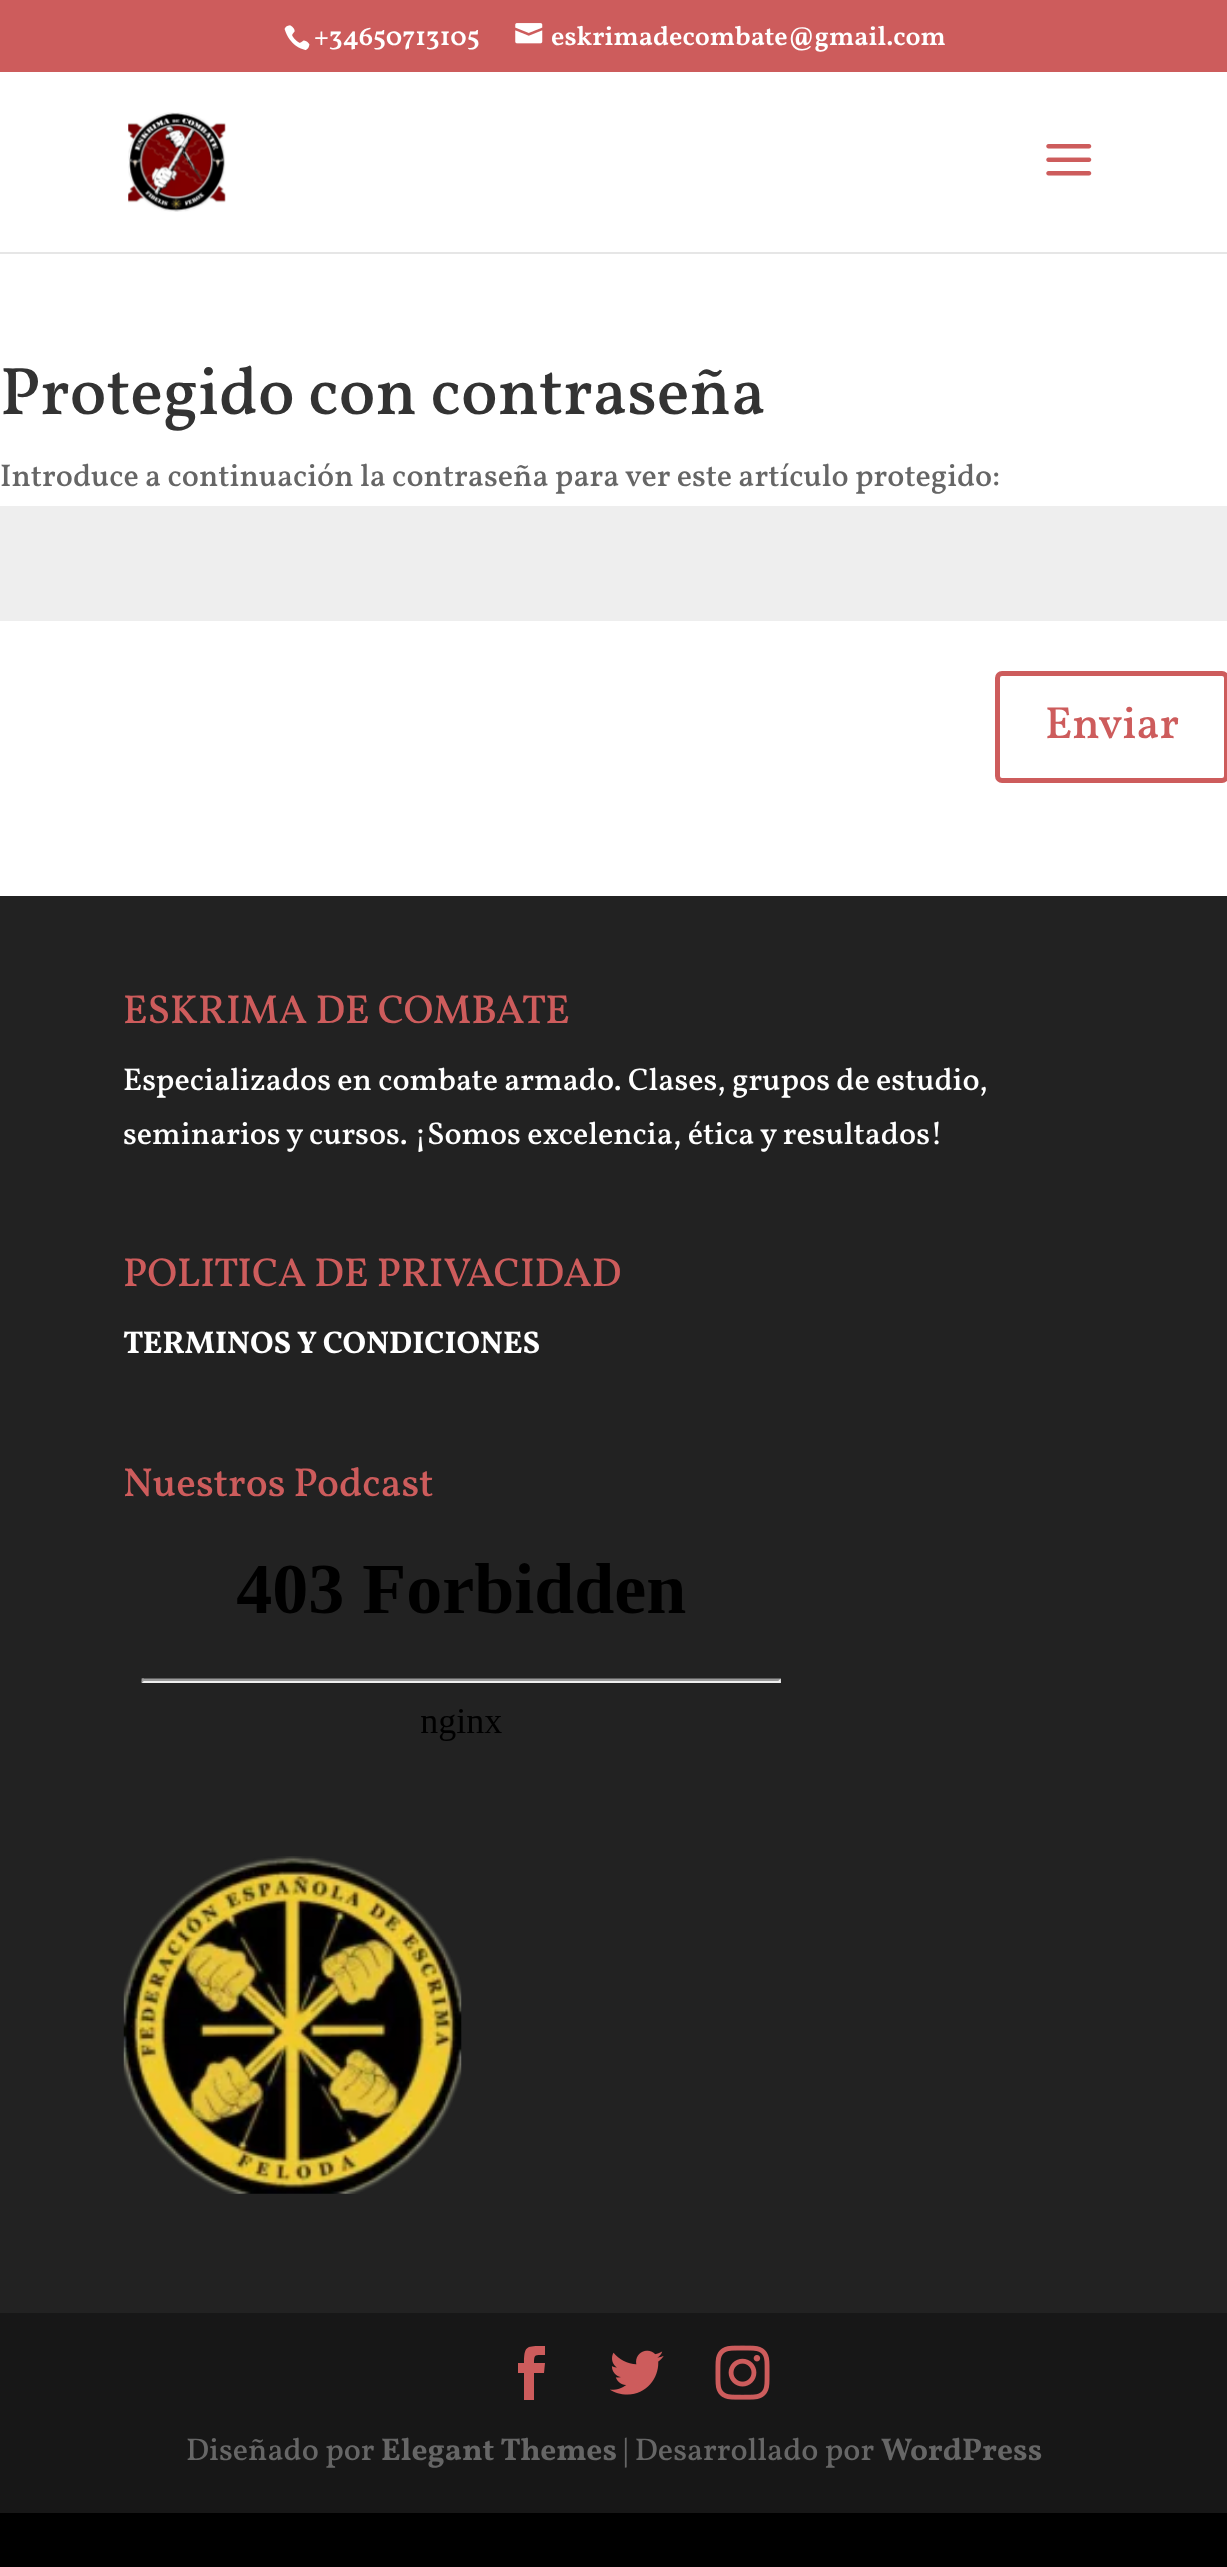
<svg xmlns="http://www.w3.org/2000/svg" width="1227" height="2567">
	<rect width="100%" height="100%" fill="#000000" />
	<rect x="0" y="0" width="1227" height="72" fill="#CD5C5C" />
	<image x="284" y="25" width="26" height="26" href="assets/img1.png" />
	<text x="314" y="45" font-family="Vollkorn" font-size="27" font-weight="600" fill="#FFFFFF">+34650713105</text>
	<image x="515" y="23" width="28" height="21" href="assets/img2.png" />
	<text x="551" y="45" font-family="Vollkorn" font-size="27" font-weight="600" fill="#FFFFFF">eskrimadecombate@gmail.com</text>
	<path d="M0 252V254H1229V74H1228V252Z" fill="#E6E6E6" />
	<rect x="0" y="72" width="1227" height="180" fill="#FFFFFF" />
	<image x="128" y="112" width="98" height="100" href="assets/img3.png" />
	<image x="1046" y="144" width="46" height="32" href="assets/img4.png" />
	<rect x="0" y="254" width="1227" height="642" fill="#FFFFFF" />
	<text x="0" y="414" font-family="Vollkorn" font-size="67.5" font-weight="500" fill="#333333">Protegido con contraseña</text>
	<text x="0" y="486" font-family="Vollkorn" font-size="31.5" font-weight="500" fill="#666666">Introduce a continuación la contraseña para ver este artículo protegido:</text>
	<rect x="0" y="506" width="1227" height="115" fill="#EEEEEE" />
	<rect x="997.5" y="673.5" width="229" height="107" rx="4.5" fill="none" stroke="#CD5C5C" stroke-width="5" />
	<text x="1045" y="738" font-family="Vollkorn" font-size="45" font-weight="500" fill="#CD5C5C">Enviar</text>
	<rect x="0" y="896" width="1227" height="1417" fill="#222222" />
	<text x="123" y="1023" font-family="Vollkorn" font-size="40.5" font-weight="500" fill="#CD5C5C">ESKRIMA DE COMBATE</text>
	<g font-family="Vollkorn" font-size="31.5" font-weight="500" fill="#FFFFFF">
		<text x="123" y="1090">Especializados en combate armado. Clases, grupos de estudio,</text>
		<text x="123" y="1144">seminarios y cursos. ¡Somos excelencia, ética y resultados!</text>
	</g>
	<text x="123" y="1286" font-family="Vollkorn" font-size="40.5" font-weight="500" fill="#CD5C5C">POLITICA DE PRIVACIDAD</text>
	<text x="123" y="1353" font-family="Vollkorn" font-size="31.5" font-weight="700" fill="#FFFFFF">TERMINOS Y CONDICIONES</text>
	<text x="123" y="1496" font-family="Vollkorn" font-size="40.5" font-weight="500" fill="#CD5C5C">Nuestros Podcast</text>
	<image x="141" y="1563" width="640" height="178" href="assets/img5.png" />
	<image x="123" y="1856" width="339" height="338" href="assets/img6.png" />
	<rect x="0" y="2313" width="1227" height="200" fill="#171717" />
	<path d="M524 2400H534V2373H544L545 2363H534C534 2354 535 2355 545 2355V2346C527 2346 524 2345 524 2363H518V2373H524Z" fill="#CD5C5C" />
	<image x="610" y="2350" width="54" height="45" href="assets/img7.png" />
	<image x="715" y="2345" width="55" height="55" href="assets/img8.png" />
	<text x="186" y="2460" font-family="Vollkorn" font-size="31.5" font-weight="500" fill="#666666">Diseñado por</text>
	<text x="381" y="2460" font-family="Vollkorn" font-size="31.5" font-weight="700" fill="#666666">Elegant Themes</text>
	<text x="623" y="2460" font-family="Vollkorn" font-size="31.5" font-weight="500" fill="#666666">| Desarrollado por</text>
	<text x="881" y="2460" font-family="Vollkorn" font-size="31.5" font-weight="700" fill="#666666">WordPress</text>
</svg>
